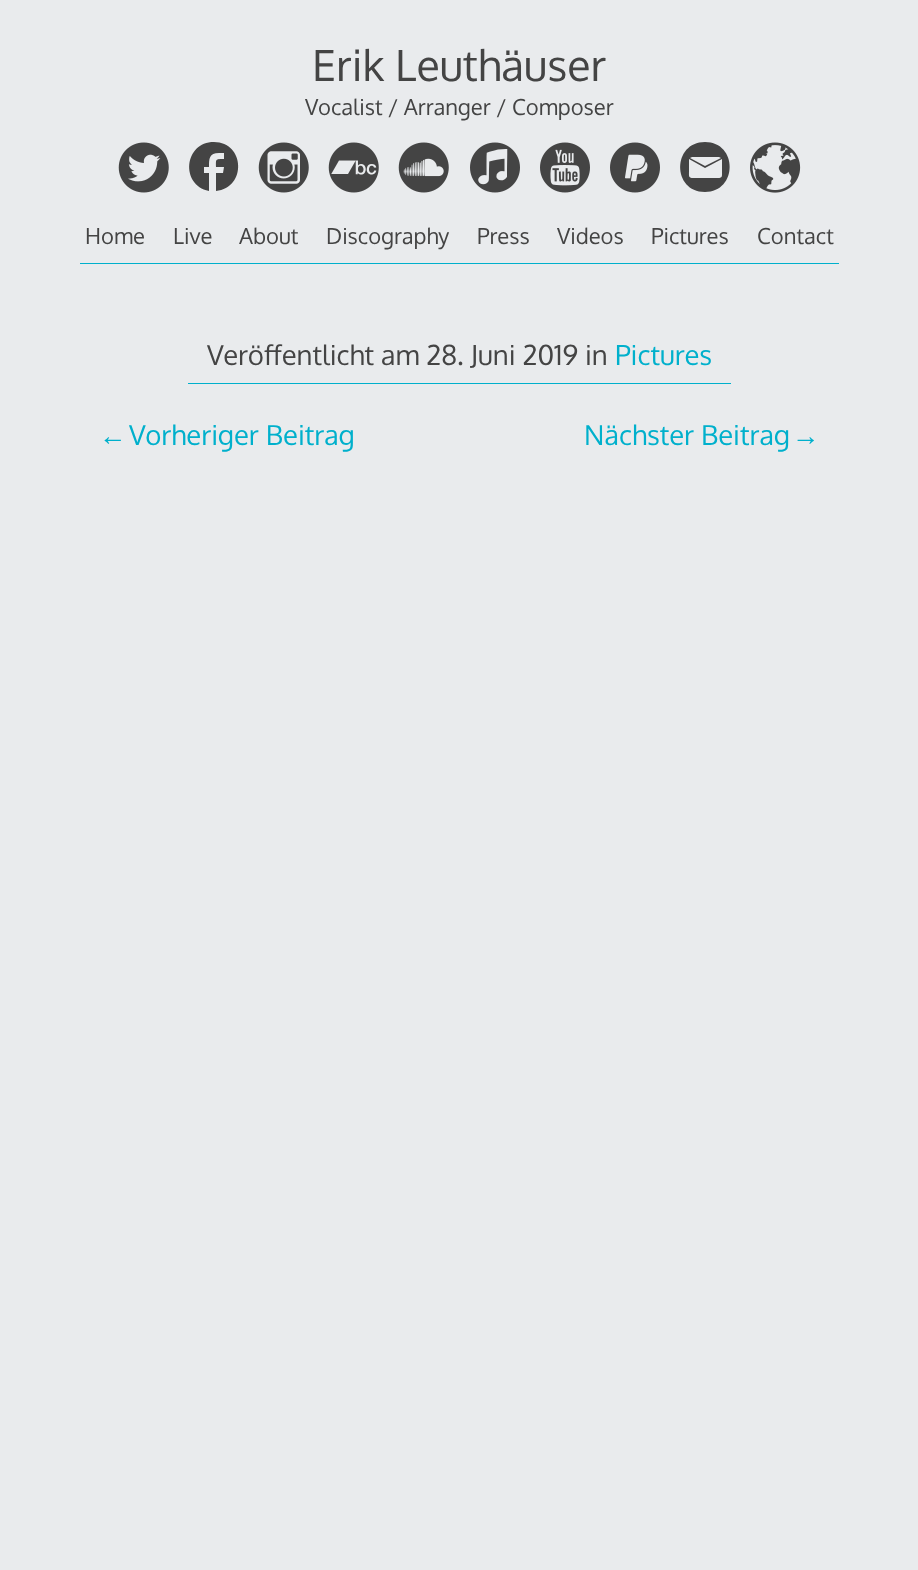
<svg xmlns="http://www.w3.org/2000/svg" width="918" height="1570">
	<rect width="100%" height="100%" fill="#E9EBED" />
	<rect x="80" y="263" width="759" height="1" fill="#00B0CC" />
	<text x="312" y="81" font-family="Oxygen" font-size="43" fill="#444444">Erik Leuthäuser</text>
	<text x="305" y="115" font-family="Oxygen" font-size="22" fill="#444444">Vocalist / Arranger / Composer</text>
	<image x="118" y="142" width="51" height="51" href="assets/img1.png" />
	<path d="M214 142C245 142 247 188 216 191V173H223L224 167H216C216 159 215 159 224 159V153H219C209 153 209 159 209 167H204V173H209V191C180 185 184 142 214 142Z" fill="#444444" fill-rule="evenodd" />
	<image x="258" y="142" width="51" height="51" href="assets/img2.png" />
	<image x="328" y="142" width="51" height="51" href="assets/img3.png" />
	<image x="398" y="142" width="51" height="51" href="assets/img4.png" />
	<image x="470" y="142" width="50" height="51" href="assets/img5.png" />
	<image x="540" y="142" width="50" height="51" href="assets/img6.png" />
	<image x="610" y="142" width="50" height="51" href="assets/img7.png" />
	<path d="M692 157L690 158L705 166L721 158L719 157ZM689 159V170C689 178 688 178 696 178H715C723 178 722 178 722 170V159L705 168ZM705 142C738 142 738 192 705 192C672 192 672 142 705 142ZM723 158V157Z" fill="#444444" fill-rule="evenodd" />
	<image x="750" y="142" width="51" height="51" href="assets/img8.png" />
	<g font-family="Oxygen" font-size="22" fill="#444444">
		<text x="85" y="244">Home</text>
		<text x="173" y="244">Live</text>
		<text x="239" y="244">About</text>
		<text x="326" y="244">Discography</text>
		<text x="477" y="244">Press</text>
		<text x="557" y="244">Videos</text>
		<text x="651" y="244">Pictures</text>
		<text x="757" y="244">Contact</text>
	</g>
	<rect x="188" y="383" width="543" height="1" fill="#00B0CC" />
	<text x="207" y="365" font-family="Oxygen" font-size="27.5" fill="#444444">Veröffentlicht am 28. Juni 2019 in</text>
	<text x="615" y="365" font-family="Oxygen" font-size="27.5" fill="#00B0CC">Pictures</text>
	<text x="99" y="445" font-family="Liberation Sans" font-size="27.5" fill="#00B0CC">←</text>
	<g font-family="Oxygen" font-size="27.5" fill="#00B0CC">
		<text x="129" y="445">Vorheriger Beitrag</text>
		<text x="584" y="445">Nächster Beitrag</text>
	</g>
	<text x="792" y="445" font-family="Liberation Sans" font-size="27.5" fill="#00B0CC">→</text>
</svg>
